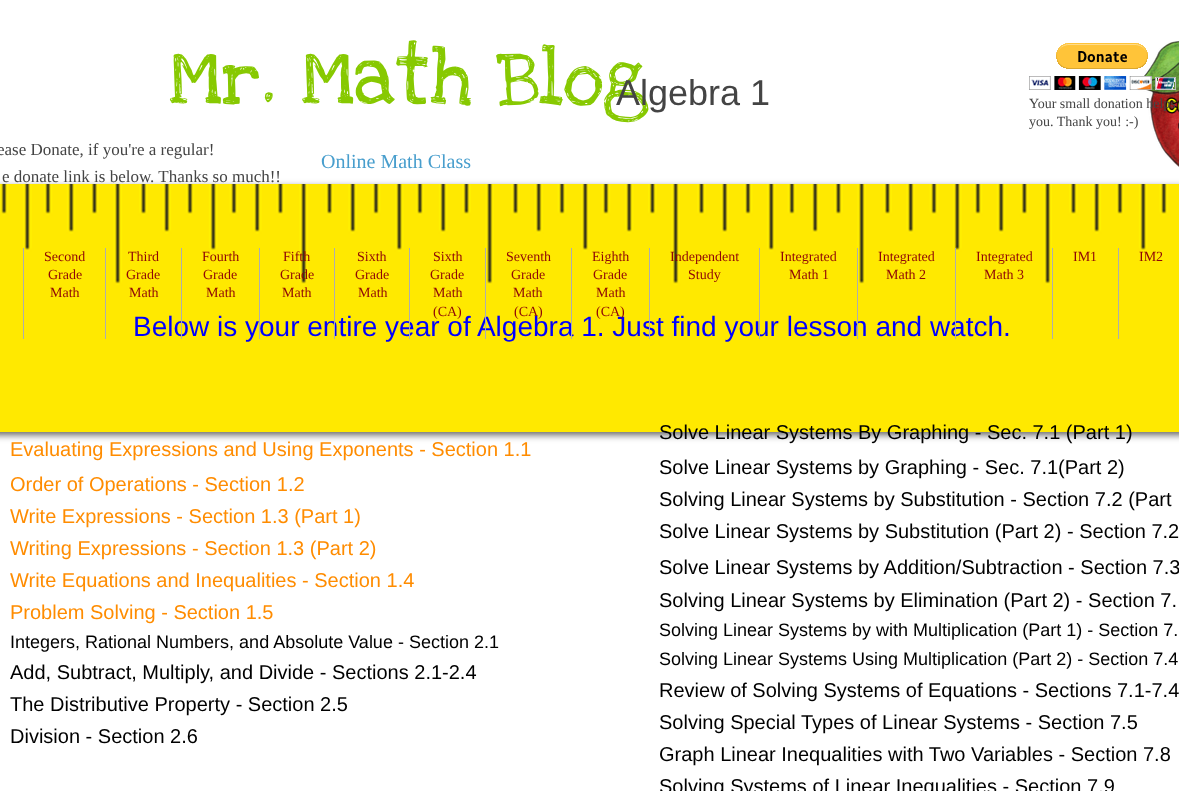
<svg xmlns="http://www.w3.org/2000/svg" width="1179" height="791">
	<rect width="100%" height="100%" fill="#FFFFFF" />
	<text x="169" y="103" font-family="Love Ya Like A Sister" font-size="80" fill="#87C901">Mr. Math Blog</text>
	<text x="616" y="105" font-family="Liberation Sans" font-size="36" fill="#444444">Algebra 1</text>
	<image x="1130" y="40" width="49" height="127" href="assets/img1.png" />
	<image x="1029" y="43" width="147" height="47" href="assets/img2.png" />
	<g font-family="Liberation Serif" font-size="14" fill="#444444">
		<text x="1029" y="108">Your small donation helps</text>
		<text x="1029" y="126">you. Thank you! :-)</text>
	</g>
	<text x="-3" y="155" font-family="Liberation Serif" font-size="17" fill="#444444">ease Donate, if you're a regular!</text>
	<rect x="-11" y="187" width="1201" height="248" fill="#323232" fill-opacity="0.75" filter="blur(3.5px)" />
	<text x="2" y="182" font-family="Liberation Serif" font-size="17" fill="#444444">e donate link is below. Thanks so much!!</text>
	<text x="321" y="168" font-family="Liberation Serif" font-size="20" fill="#489ECD">Online Math Class</text>
	<image x="0" y="184" width="1179" height="248" href="assets/img3.png" />
	<rect x="23" y="248" width="1" height="91" fill="#AEAEAE" />
	<rect x="105" y="248" width="1" height="91" fill="#AEAEAE" />
	<g font-family="Liberation Serif" font-size="14" fill="#8F0607">
		<text x="44" y="261">Second</text>
		<text x="48" y="279">Grade</text>
		<text x="50" y="297">Math</text>
	</g>
	<text x="133" y="336" font-family="Liberation Sans" font-size="28" fill="#0000FF">Below is your entire year of Algebra 1. Just find your lesson and watch.</text>
	<rect x="181" y="248" width="1" height="91" fill="#AEAEAE" />
	<g font-family="Liberation Serif" font-size="14" fill="#8F0607">
		<text x="128" y="261">Third</text>
		<text x="126" y="279">Grade</text>
		<text x="129" y="297">Math</text>
	</g>
	<rect x="259" y="248" width="1" height="91" fill="#AEAEAE" />
	<g font-family="Liberation Serif" font-size="14" fill="#8F0607">
		<text x="202" y="261">Fourth</text>
		<text x="203" y="279">Grade</text>
		<text x="206" y="297">Math</text>
	</g>
	<rect x="334" y="248" width="1" height="91" fill="#AEAEAE" />
	<g font-family="Liberation Serif" font-size="14" fill="#8F0607">
		<text x="283" y="261">Fifth</text>
		<text x="280" y="279">Grade</text>
		<text x="282" y="297">Math</text>
	</g>
	<rect x="409" y="248" width="1" height="91" fill="#AEAEAE" />
	<g font-family="Liberation Serif" font-size="14" fill="#8F0607">
		<text x="357" y="261">Sixth</text>
		<text x="355" y="279">Grade</text>
		<text x="358" y="297">Math</text>
	</g>
	<rect x="485" y="248" width="1" height="91" fill="#AEAEAE" />
	<g font-family="Liberation Serif" font-size="14" fill="#8F0607">
		<text x="433" y="261">Sixth</text>
		<text x="430" y="279">Grade</text>
		<text x="433" y="297">Math</text>
		<text x="433" y="316">(CA)</text>
	</g>
	<rect x="571" y="248" width="1" height="91" fill="#AEAEAE" />
	<g font-family="Liberation Serif" font-size="14" fill="#8F0607">
		<text x="506" y="261">Seventh</text>
		<text x="511" y="279">Grade</text>
		<text x="513" y="297">Math</text>
		<text x="514" y="316">(CA)</text>
	</g>
	<rect x="649" y="248" width="1" height="91" fill="#AEAEAE" />
	<g font-family="Liberation Serif" font-size="14" fill="#8F0607">
		<text x="592" y="261">Eighth</text>
		<text x="593" y="279">Grade</text>
		<text x="596" y="297">Math</text>
		<text x="596" y="316">(CA)</text>
	</g>
	<rect x="759" y="248" width="1" height="91" fill="#AEAEAE" />
	<g font-family="Liberation Serif" font-size="14" fill="#8F0607">
		<text x="670" y="261">Independent</text>
		<text x="688" y="279">Study</text>
	</g>
	<rect x="857" y="248" width="1" height="91" fill="#AEAEAE" />
	<g font-family="Liberation Serif" font-size="14" fill="#8F0607">
		<text x="780" y="261">Integrated</text>
		<text x="789" y="279">Math 1</text>
	</g>
	<rect x="955" y="248" width="1" height="91" fill="#AEAEAE" />
	<g font-family="Liberation Serif" font-size="14" fill="#8F0607">
		<text x="878" y="261">Integrated</text>
		<text x="886" y="279">Math 2</text>
	</g>
	<rect x="1052" y="248" width="1" height="91" fill="#AEAEAE" />
	<g font-family="Liberation Serif" font-size="14" fill="#8F0607">
		<text x="976" y="261">Integrated</text>
		<text x="984" y="279">Math 3</text>
	</g>
	<rect x="1118" y="248" width="1" height="91" fill="#AEAEAE" />
	<g font-family="Liberation Serif" font-size="14" fill="#8F0607">
		<text x="1073" y="261">IM1</text>
		<text x="1139" y="261">IM2</text>
	</g>
	<g font-family="Liberation Sans" font-size="20" fill="#FF8C00">
		<text x="10" y="456">Evaluating Expressions and Using Exponents - Section 1.1</text>
		<text x="10" y="491">Order of Operations - Section 1.2</text>
		<text x="10" y="523">Write Expressions - Section 1.3 (Part 1)</text>
		<text x="10" y="555">Writing Expressions - Section 1.3 (Part 2)</text>
		<text x="10" y="587">Write Equations and Inequalities - Section 1.4</text>
		<text x="10" y="619">Problem Solving - Section 1.5</text>
	</g>
	<text x="10" y="648" font-family="Liberation Sans" font-size="18" fill="#000000">Integers, Rational Numbers, and Absolute Value - Section 2.1</text>
	<g font-family="Liberation Sans" font-size="20" fill="#000000">
		<text x="10" y="679">Add, Subtract, Multiply, and Divide - Sections 2.1-2.4</text>
		<text x="10" y="711">The Distributive Property - Section 2.5</text>
		<text x="10" y="743">Division - Section 2.6</text>
		<text x="659" y="439">Solve Linear Systems By Graphing - Sec. 7.1 (Part 1)</text>
		<text x="659" y="474">Solve Linear Systems by Graphing - Sec. 7.1(Part 2)</text>
		<text x="659" y="506">Solving Linear Systems by Substitution - Section 7.2 (Part</text>
		<text x="659" y="538">Solve Linear Systems by Substitution (Part 2) - Section 7.2</text>
		<text x="659" y="574">Solve Linear Systems by Addition/Subtraction - Section 7.3</text>
		<text x="659" y="607">Solving Linear Systems by Elimination (Part 2) - Section 7.</text>
	</g>
	<g font-family="Liberation Sans" font-size="18" fill="#000000">
		<text x="659" y="636">Solving Linear Systems by with Multiplication (Part 1) - Section 7.</text>
		<text x="659" y="665">Solving Linear Systems Using Multiplication (Part 2) - Section 7.4</text>
	</g>
	<g font-family="Liberation Sans" font-size="20" fill="#000000">
		<text x="659" y="697">Review of Solving Systems of Equations - Sections 7.1-7.4</text>
		<text x="659" y="729">Solving Special Types of Linear Systems - Section 7.5</text>
		<text x="659" y="761">Graph Linear Inequalities with Two Variables - Section 7.8</text>
		<text x="659" y="793">Solving Systems of Linear Inequalities - Section 7.9</text>
	</g>
</svg>
